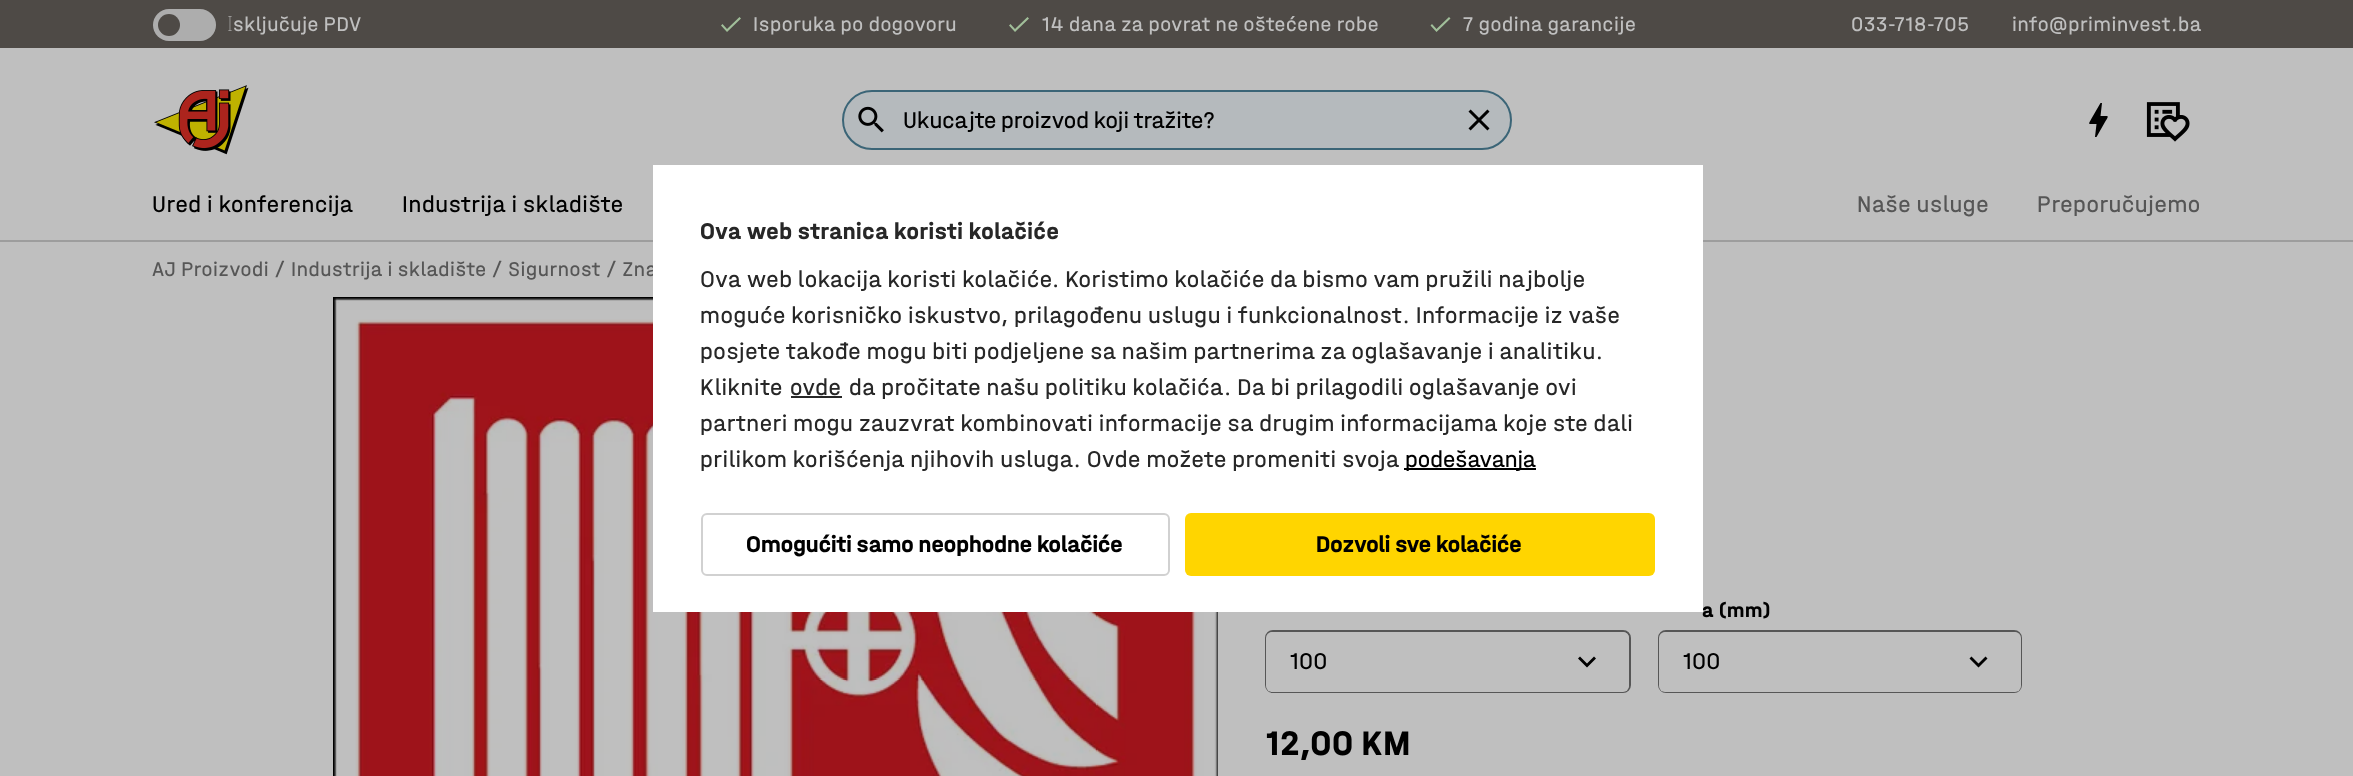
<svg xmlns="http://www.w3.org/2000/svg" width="2353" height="776">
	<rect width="100%" height="100%" fill="#BFBFBF" />
	<rect x="0" y="0" width="2353" height="48" fill="#4E4A46" />
	<rect x="153" y="9" width="63" height="32" rx="16" fill="#ADADAD" />
	<circle cx="169" cy="25" r="11" fill="#4E4A46" />
	<text x="227" y="31" font-family="Noto Sans" font-size="21" font-weight="100" letter-spacing="0.6" fill="#BFBFBF">I</text>
	<text x="233" y="31" font-family="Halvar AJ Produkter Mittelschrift" font-size="21" letter-spacing="0.6" fill="#BFBFBF">sključuje PDV</text>
	<path d="M727 29L722.5 24L721 25.5L727 32L741 18.5L739.5 17Z" fill="#A1BF9A" />
	<text x="753" y="31" font-family="Halvar AJ Produkter Mittelschrift" font-size="21" letter-spacing="0.6" fill="#BFBFBF">Isporuka po dogovoru</text>
	<path d="M1015 29L1010.5 24L1009 25.5L1015 32L1029 18.5L1027.5 17Z" fill="#A1BF9A" />
	<text x="1042" y="31" font-family="Halvar AJ Produkter Mittelschrift" font-size="21" letter-spacing="0.6" fill="#BFBFBF">14 dana za povrat ne oštećene robe</text>
	<path d="M1436.5 29L1432 24L1430.5 25.5L1436.5 32L1450.5 18.5L1449 17Z" fill="#A1BF9A" />
	<g font-family="Halvar AJ Produkter Mittelschrift" font-size="21" letter-spacing="0.6" fill="#BFBFBF">
		<text x="1463" y="31">7 godina garancije</text>
		<text x="1851" y="31">033-718-705</text>
		<text x="2012" y="31">info@priminvest.ba</text>
	</g>
	<image x="154" y="85" width="95" height="70" href="assets/img1.png" />
	<rect x="843" y="91" width="668" height="58" rx="29" fill="#B5BABD" stroke="#3B6577" stroke-width="2" />
	<image x="858" y="106" width="26" height="27" href="assets/img2.png" />
	<text x="903" y="128" font-family="Halvar AJ Produkter Mittelschrift" font-size="24" fill="#000000">Ukucajte proizvod koji tražite?</text>
	<image x="1468" y="109" width="22" height="22" href="assets/img3.png" />
	<path d="M2096.5 137H2095L2096.5 124C2087.5 124 2088 125 2091.5 118.5L2100.5 103H2102L2100.5 116C2109 116 2109.5 114.5 2105 122Z" fill="#000000" />
	<image x="2146" y="102" width="44" height="40" href="assets/img4.png" />
	<g font-family="Halvar AJ Produkter Mittelschrift" font-size="24" letter-spacing="0.6" fill="#000000">
		<text x="152" y="212">Ured i konferencija</text>
		<text x="402" y="212">Industrija i skladište</text>
	</g>
	<g font-family="Halvar AJ Produkter Mittelschrift" font-size="24" letter-spacing="0.6" fill="#565656">
		<text x="1857" y="212">Naše usluge</text>
		<text x="2037" y="212">Preporučujemo</text>
	</g>
	<rect x="0" y="240" width="2353" height="2" fill="#9D9D9D" />
	<text x="152" y="276" font-family="Halvar AJ Produkter Mittelschrift" font-size="21" letter-spacing="0.6" fill="#565656">AJ Proizvodi / Industrija i skladište / Sigurnost / Zna</text>
	<image x="333" y="297" width="885" height="479" href="assets/img5.png" />
	<rect x="1266" y="631" width="364" height="61" rx="7" fill="none" stroke="#565656" stroke-width="2" />
	<rect x="1266" y="632" width="363" height="60" rx="6" fill="#BFBFBF" />
	<text x="1290" y="669" font-family="Halvar AJ Produkter Mittelschrift" font-size="24" fill="#000000">100</text>
	<path d="M1580 656.5L1587 663.5L1594 656.5L1596 658.5L1587 667.5L1578 658.5Z" fill="#000000" />
	<text x="1702" y="617" font-family="Halvar AJ Produkter Mittelschrift" font-size="21" font-weight="700" letter-spacing="0.6" fill="#000000">a (mm)</text>
	<rect x="1659" y="631" width="362" height="61" rx="7" fill="none" stroke="#565656" stroke-width="2" />
	<rect x="1659" y="632" width="362" height="60" rx="6" fill="#BFBFBF" />
	<text x="1683" y="669" font-family="Halvar AJ Produkter Mittelschrift" font-size="24" fill="#000000">100</text>
	<path d="M1971.5 656.5L1978.5 663.5L1985.5 656.5L1987.5 658.5L1978.5 667.5L1969.5 658.5Z" fill="#000000" />
	<text x="1266" y="755" font-family="Halvar AJ Produkter Mittelschrift" font-size="36" font-weight="700" letter-spacing="0.6" fill="#000000">12,00 KM</text>
	<rect x="653" y="165" width="1050" height="447" fill="#FFFFFF" />
	<text x="700" y="239" font-family="Halvar AJ Produkter Mittelschrift" font-size="24" font-weight="700" letter-spacing="0.6" fill="#272727">Ova web stranica koristi kolačiće</text>
	<g font-family="Halvar AJ Produkter Mittelschrift" font-size="24" letter-spacing="0.6" fill="#272727">
		<text x="700" y="287">Ova web lokacija koristi kolačiće. Koristimo kolačiće da bismo vam pružili najbolje</text>
		<text x="700" y="323">moguće korisničko iskustvo, prilagođenu uslugu i funkcionalnost. Informacije iz vaše</text>
		<text x="700" y="359">posjete takođe mogu biti podjeljene sa našim partnerima za oglašavanje i analitiku.</text>
		<text x="700" y="395">Kliknite</text>
		<text x="790" y="395">ovde</text>
	</g>
	<rect x="791" y="396" width="51" height="2" fill="#272727" />
	<g font-family="Halvar AJ Produkter Mittelschrift" font-size="24" letter-spacing="0.6" fill="#272727">
		<text x="849" y="395">da pročitate našu politiku kolačića. Da bi prilagodili oglašavanje ovi</text>
		<text x="700" y="431">partneri mogu zauzvrat kombinovati informacije sa drugim informacijama koje ste dali</text>
		<text x="700" y="467">prilikom korišćenja njihovih usluga. Ovde možete promeniti svoja</text>
	</g>
	<rect x="1404" y="468" width="132" height="2" fill="#000000" />
	<text x="1405" y="467" font-family="Halvar AJ Produkter Mittelschrift" font-size="24" fill="#000000">podešavanja</text>
	<rect x="702" y="514" width="467" height="61" rx="5" fill="none" stroke="#D1D1D1" stroke-width="2" />
	<text x="746" y="552" font-family="Halvar AJ Produkter Mittelschrift" font-size="24" font-weight="700" fill="#000000">Omogućiti samo neophodne kolačiće</text>
	<rect x="1185" y="513" width="470" height="63" rx="6" fill="#FFD500" />
	<text x="1316" y="552" font-family="Halvar AJ Produkter Mittelschrift" font-size="24" font-weight="700" fill="#000000">Dozvoli sve kolačiće</text>
</svg>
